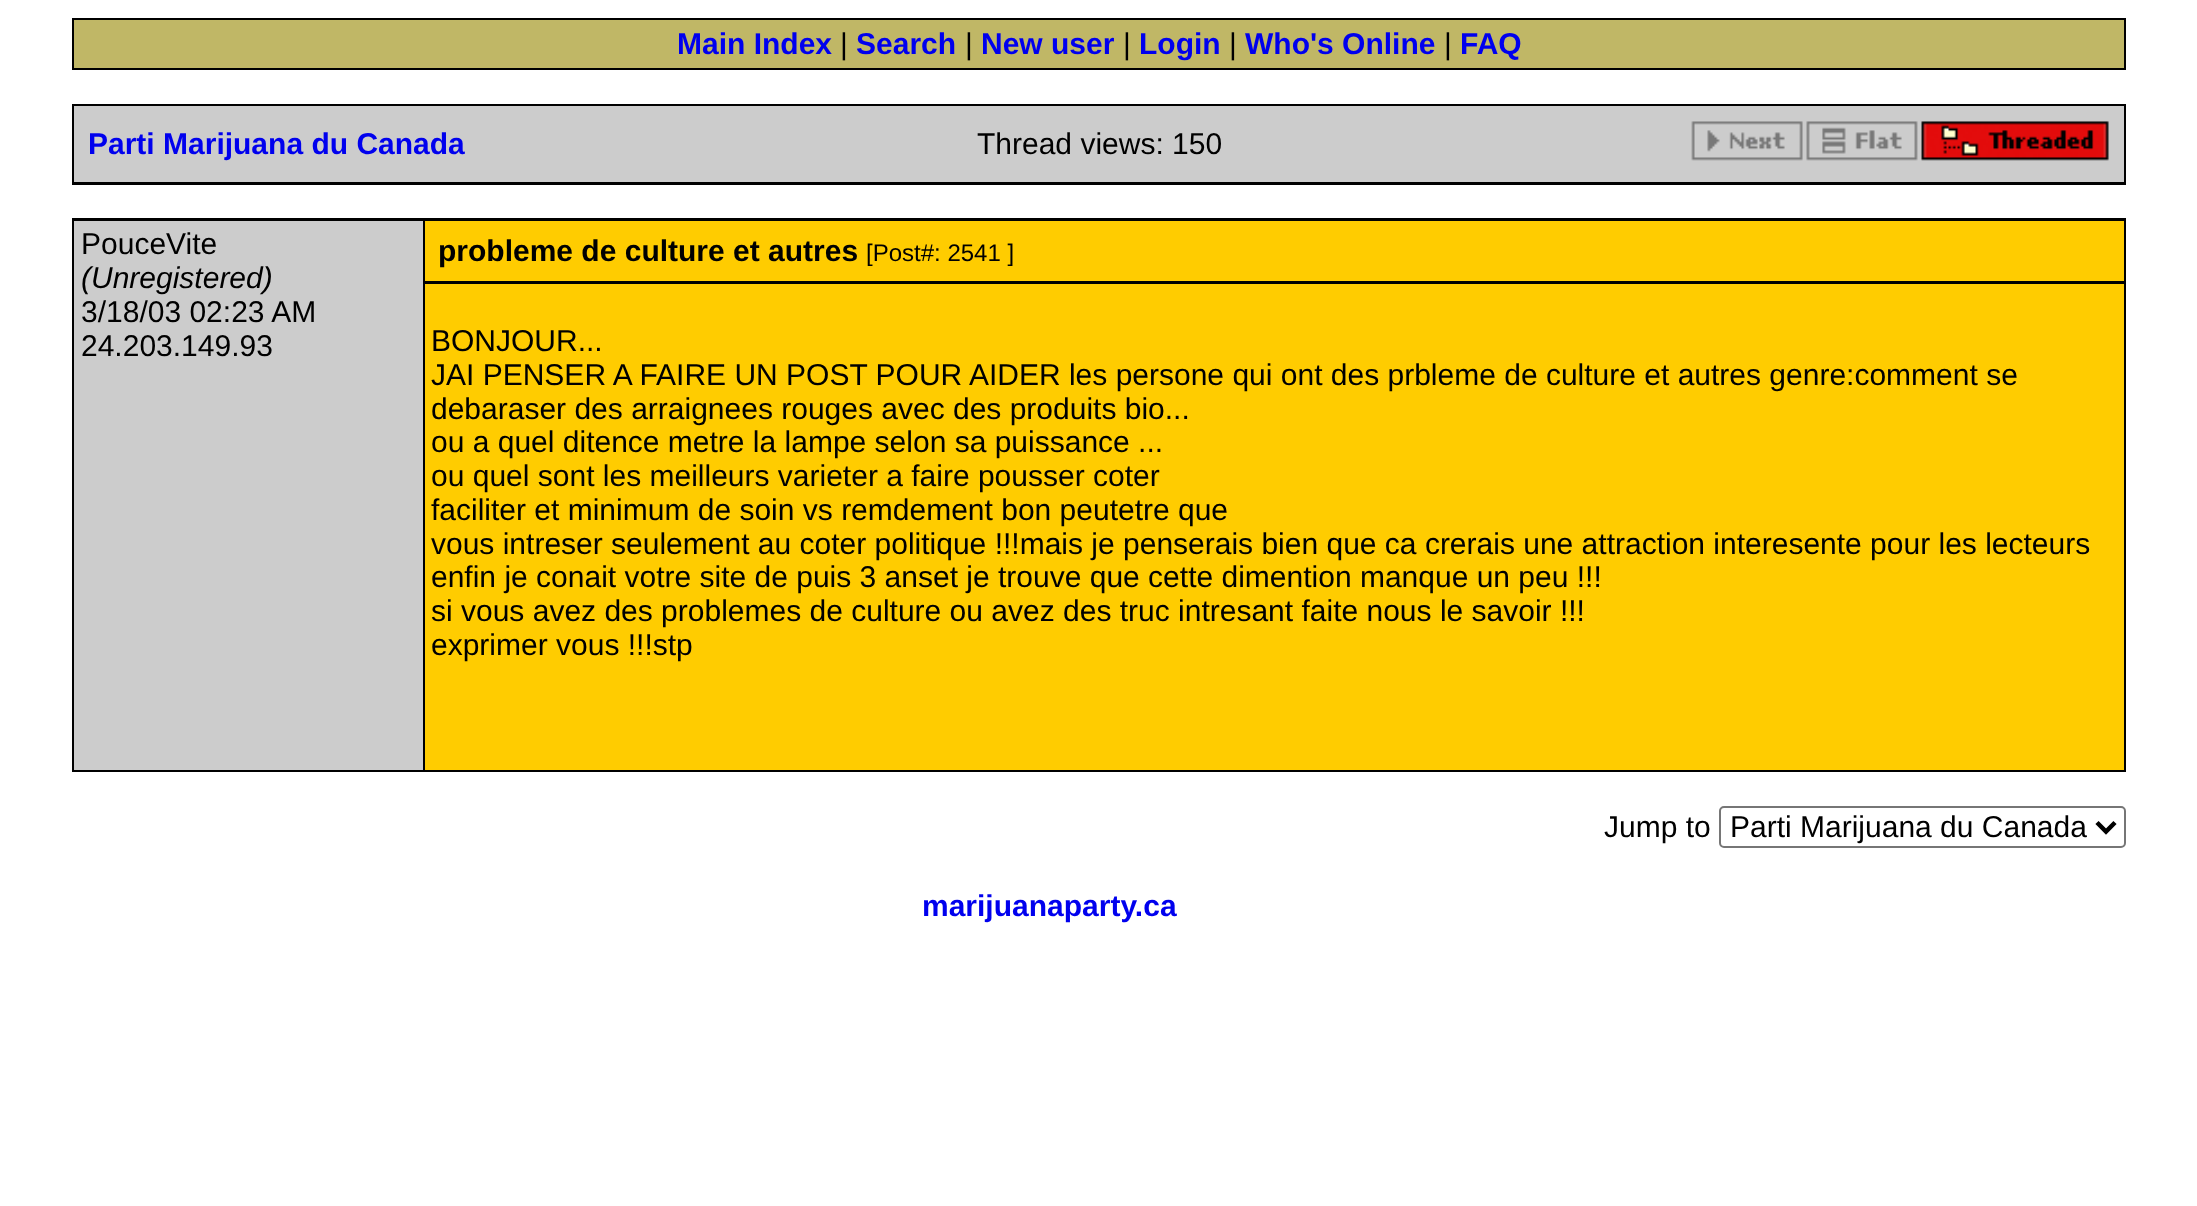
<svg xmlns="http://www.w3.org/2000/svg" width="2197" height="1206">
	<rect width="100%" height="100%" fill="#FFFFFF" />
	<rect x="72" y="18" width="2054" height="52" fill="#000000" />
	<rect x="74" y="20" width="2050" height="48" fill="#C0B766" />
	<text x="677" y="54" font-family="Liberation Sans" font-size="30" font-weight="700" fill="#0000EE">Main Index</text>
	<text x="840" y="54" font-family="Liberation Sans" font-size="30" fill="#000000">|</text>
	<text x="856" y="54" font-family="Liberation Sans" font-size="30" font-weight="700" fill="#0000EE">Search</text>
	<text x="965" y="54" font-family="Liberation Sans" font-size="30" fill="#000000">|</text>
	<text x="981" y="54" font-family="Liberation Sans" font-size="30" font-weight="700" fill="#0000EE">New user</text>
	<text x="1123" y="54" font-family="Liberation Sans" font-size="30" fill="#000000">|</text>
	<text x="1139" y="54" font-family="Liberation Sans" font-size="30" font-weight="700" fill="#0000EE">Login</text>
	<text x="1229" y="54" font-family="Liberation Sans" font-size="30" fill="#000000">|</text>
	<text x="1245" y="54" font-family="Liberation Sans" font-size="30" font-weight="700" fill="#0000EE">Who's Online</text>
	<text x="1444" y="54" font-family="Liberation Sans" font-size="30" fill="#000000">|</text>
	<text x="1460" y="54" font-family="Liberation Sans" font-size="30" font-weight="700" fill="#0000EE">FAQ</text>
	<rect x="72" y="104" width="2054" height="81" fill="#000000" />
	<rect x="74" y="106" width="2050" height="76" fill="#CCCCCC" />
	<text x="88" y="154" font-family="Liberation Sans" font-size="30" font-weight="700" fill="#0000EE">Parti Marijuana du Canada</text>
	<text x="977" y="154" font-family="Liberation Sans" font-size="30" fill="#000000">Thread views: 150</text>
	<image x="1691" y="121" width="112" height="40" href="assets/img1.png" />
	<image x="1806" y="121" width="112" height="40" href="assets/img2.png" />
	<image x="1921" y="121" width="188" height="40" href="assets/img3.png" />
	<rect x="72" y="218" width="2054" height="554" fill="#000000" />
	<rect x="74" y="221" width="349" height="549" fill="#CCCCCC" />
	<text x="81" y="254" font-family="Liberation Sans" font-size="30" fill="#000000">PouceVite</text>
	<text x="81" y="288" font-family="Liberation Sans" font-size="30" font-style="italic" fill="#000000">(Unregistered)</text>
	<g font-family="Liberation Sans" font-size="30" fill="#000000">
		<text x="81" y="322">3/18/03 02:23 AM</text>
		<text x="81" y="356">24.203.149.93</text>
	</g>
	<rect x="425" y="221" width="1699" height="60" fill="#FFCC00" />
	<text x="438" y="261" font-family="Liberation Sans" font-size="30" font-weight="700" fill="#000000">probleme de culture et autres</text>
	<text x="866" y="261" font-family="Liberation Sans" font-size="24" fill="#000000">[Post#: 2541 ]</text>
	<rect x="425" y="284" width="1699" height="486" fill="#FFCC00" />
	<g font-family="Liberation Sans" font-size="30" fill="#000000">
		<text x="431" y="351">BONJOUR...</text>
		<text x="431" y="385">JAI PENSER A FAIRE UN POST POUR AIDER les persone qui ont des prbleme de culture et autres genre:comment se</text>
		<text x="431" y="419">debaraser des arraignees rouges avec des produits bio...</text>
		<text x="431" y="452">ou a quel ditence metre la lampe selon sa puissance ...</text>
		<text x="431" y="486">ou quel sont les meilleurs varieter a faire pousser coter</text>
		<text x="431" y="520">faciliter et minimum de soin vs remdement bon peutetre que</text>
		<text x="431" y="554">vous intreser seulement au coter politique !!!mais je penserais bien que ca crerais une attraction interesente pour les lecteurs</text>
		<text x="431" y="587">enfin je conait votre site de puis 3 anset je trouve que cette dimention manque un peu !!!</text>
		<text x="431" y="621">si vous avez des problemes de culture ou avez des truc intresant faite nous le savoir !!!</text>
		<text x="431" y="655">exprimer vous !!!stp</text>
		<text x="1604" y="837">Jump to</text>
	</g>
	<rect x="1720" y="807" width="405" height="40" rx="4" fill="none" stroke="#767676" stroke-width="2" />
	<path d="M2097 822.5L2106 831.5L2115 822.5" fill="none" stroke="#000000" stroke-width="4.5" />
	<text x="1730" y="837" font-family="Liberation Sans" font-size="30" fill="#000000">Parti Marijuana du Canada</text>
	<text x="922" y="916" font-family="Liberation Sans" font-size="30" font-weight="700" fill="#0000EE">marijuanaparty.ca</text>
</svg>
